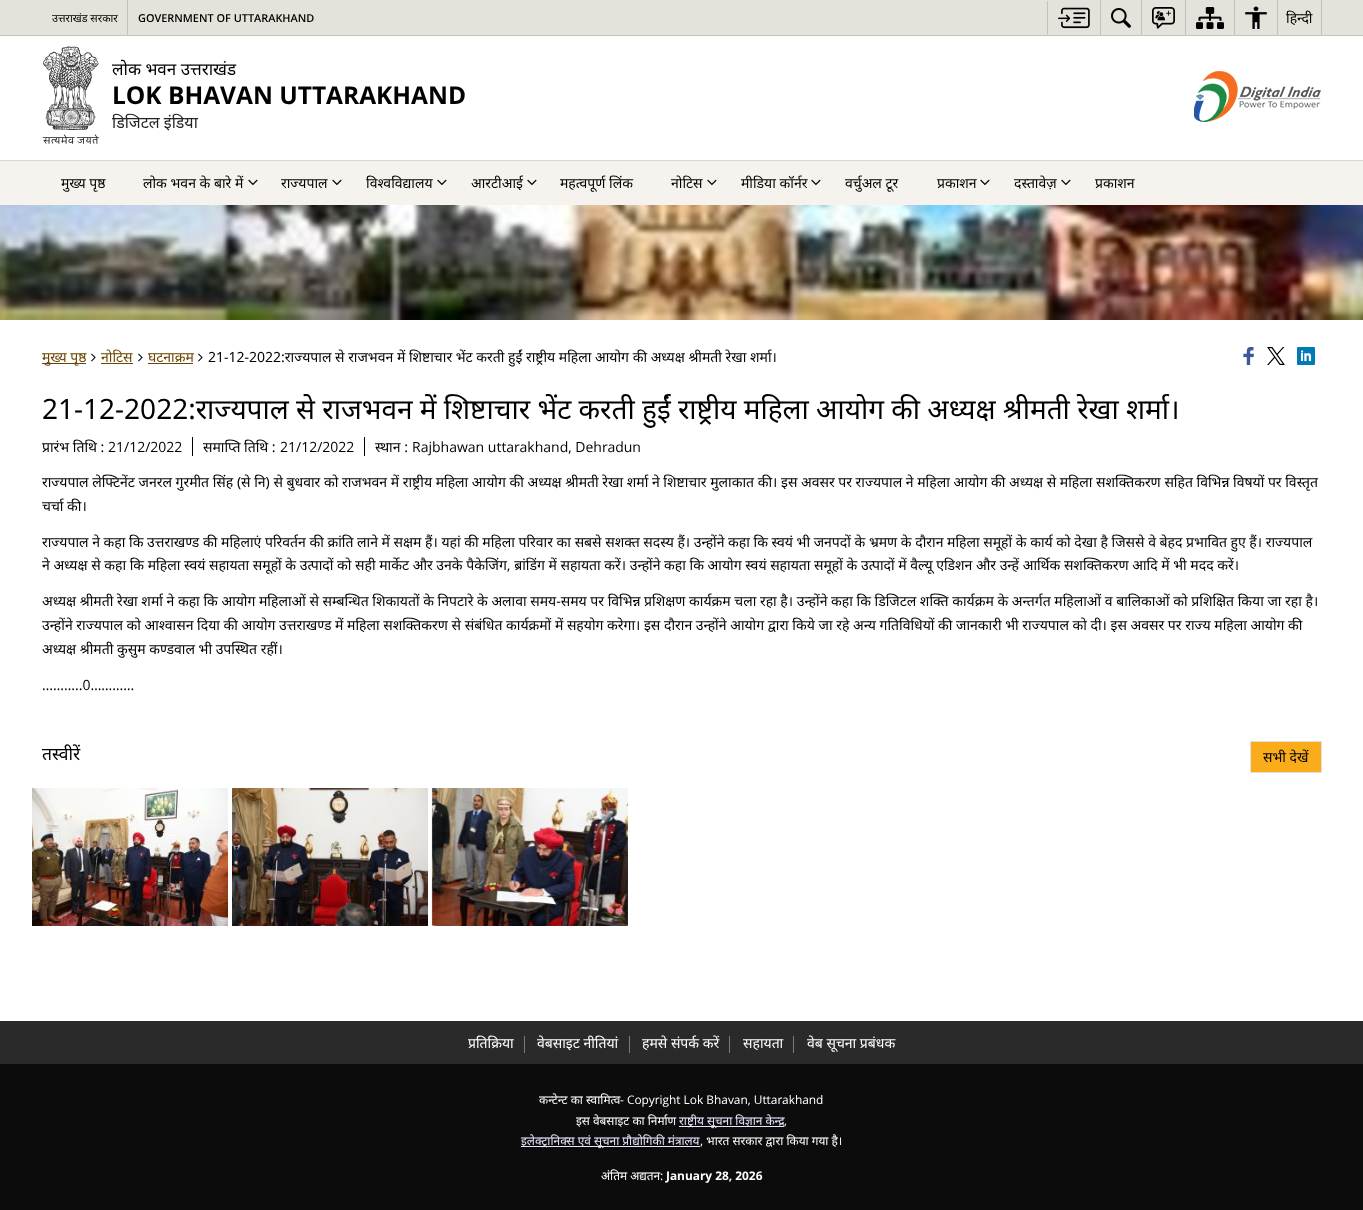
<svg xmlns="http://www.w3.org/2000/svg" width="1363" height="1210">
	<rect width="100%" height="100%" fill="#FFFFFF" />
	<rect x="0" y="0" width="1363" height="35" fill="#E5E2DB" />
	<rect x="0" y="35" width="1363" height="1" fill="#C2C0C1" />
	<rect x="127" y="0" width="1" height="35" fill="#C2C0C1" />
	<text x="52" y="22" font-family="Noto Sans" font-size="10.9" fill="#000000">उत्तराखंड सरकार</text>
	<text x="138" y="22" font-family="Open Sans" font-size="10.9" font-weight="600" fill="#000000">GOVERNMENT OF UTTARAKHAND</text>
	<rect x="1047" y="1" width="1" height="33" fill="#C2C0C1" />
	<image x="1058" y="7" width="32" height="22" href="assets/img1.png" />
	<rect x="1100" y="0" width="1" height="35" fill="#C2C0C1" />
	<image x="1111" y="8" width="20" height="20" href="assets/img2.png" />
	<rect x="1141" y="0" width="1" height="35" fill="#C2C0C1" />
	<image x="1152" y="7" width="23" height="22" href="assets/img3.png" />
	<rect x="1185" y="0" width="1" height="35" fill="#C2C0C1" />
	<image x="1196" y="7" width="28" height="22" href="assets/img4.png" />
	<rect x="1234" y="0" width="1" height="35" fill="#C2C0C1" />
	<image x="1245" y="6" width="22" height="23" href="assets/img5.png" />
	<rect x="1321" y="0" width="1" height="35" fill="#C2C0C1" />
	<rect x="1277" y="0" width="1" height="35" fill="#C2C0C1" />
	<text x="1286" y="23" font-family="Noto Sans" font-size="14" fill="#000000">हिन्दी</text>
	<image x="42" y="46" width="57" height="98" href="assets/img6.png" />
	<text x="112" y="75" font-family="Noto Sans" font-size="17" fill="#000000">लोक भवन उत्तराखंड</text>
	<text x="112" y="104" font-family="Open Sans" font-size="24.5" font-weight="700" fill="#000000">LOK BHAVAN UTTARAKHAND</text>
	<text x="112" y="128" font-family="Noto Sans" font-size="16" fill="#222222">डिजिटल इंडिया</text>
	<image x="1194" y="71" width="127" height="51" href="assets/img7.png" />
	<rect x="0" y="161" width="1363" height="44" fill="#F6F3EE" />
	<rect x="0" y="160" width="1363" height="1" fill="#D8D8D8" />
	<g font-family="Noto Sans" font-size="14" fill="#000000">
		<text x="61" y="188">मुख्य पृष्ठ</text>
		<text x="143" y="188">लोक भवन के बारे में</text>
	</g>
	<image x="248" y="179" width="10" height="7" href="assets/img8.png" />
	<text x="281" y="188" font-family="Noto Sans" font-size="14" fill="#000000">राज्यपाल</text>
	<image x="332" y="179" width="10" height="7" href="assets/img8.png" />
	<text x="366" y="188" font-family="Noto Sans" font-size="14" fill="#000000">विश्वविद्यालय</text>
	<image x="437" y="179" width="10" height="7" href="assets/img8.png" />
	<text x="471" y="188" font-family="Noto Sans" font-size="14" fill="#000000">आरटीआई</text>
	<image x="527" y="179" width="10" height="7" href="assets/img8.png" />
	<g font-family="Noto Sans" font-size="14" fill="#000000">
		<text x="560" y="188">महत्वपूर्ण लिंक</text>
		<text x="671" y="188">नोटिस</text>
	</g>
	<image x="707" y="179" width="10" height="7" href="assets/img8.png" />
	<text x="741" y="188" font-family="Noto Sans" font-size="14" fill="#000000">मीडिया कॉर्नर</text>
	<image x="811" y="179" width="10" height="7" href="assets/img8.png" />
	<g font-family="Noto Sans" font-size="14" fill="#000000">
		<text x="845" y="188">वर्चुअल टूर</text>
		<text x="937" y="188">प्रकाशन</text>
	</g>
	<image x="980" y="179" width="10" height="7" href="assets/img8.png" />
	<text x="1014" y="188" font-family="Noto Sans" font-size="14" fill="#000000">दस्तावेज़</text>
	<image x="1061" y="179" width="10" height="7" href="assets/img8.png" />
	<text x="1095" y="188" font-family="Noto Sans" font-size="14" fill="#000000">प्रकाशन</text>
	<image x="0" y="205" width="1363" height="115" href="assets/img9.png" />
	<rect x="42" y="363" width="44" height="1" fill="#6A4501" />
	<text x="42" y="362" font-family="Noto Sans" font-size="14" fill="#6A4501">मुख्य पृष्ठ</text>
	<image x="91" y="353" width="5" height="9" href="assets/img10.png" />
	<text x="101" y="362" font-family="Noto Sans" font-size="14" fill="#6A4501">नोटिस</text>
	<rect x="101" y="363" width="32" height="1" fill="#6A4501" />
	<image x="138" y="353" width="5" height="9" href="assets/img10.png" />
	<text x="148" y="362" font-family="Noto Sans" font-size="14" fill="#6A4501">घटनाक्रम</text>
	<rect x="148" y="363" width="45" height="1" fill="#6A4501" />
	<image x="198" y="353" width="5" height="9" href="assets/img10.png" />
	<text x="208" y="362" font-family="Noto Sans" font-size="14" fill="#000000">21-12-2022:राज्यपाल से राजभवन में शिष्टाचार भेंट करती हुईं राष्ट्रीय महिला आयोग की अध्यक्ष श्रीमती रेखा शर्मा।</text>
	<image x="1243" y="347" width="11" height="18" href="assets/img11.png" />
	<image x="1267" y="347" width="18" height="18" href="assets/img12.png" />
	<image x="1297" y="347" width="18" height="18" href="assets/img13.png" />
	<text x="42" y="419" font-family="Noto Sans" font-size="28" fill="#000000">21-12-2022:राज्यपाल से राजभवन में शिष्टाचार भेंट करती हुईं राष्ट्रीय महिला आयोग की अध्यक्ष श्रीमती रेखा शर्मा।</text>
	<rect x="192" y="437" width="1" height="19" fill="#000000" />
	<text x="42" y="452" font-family="Noto Sans" font-size="14" fill="#000000">प्रारंभ तिथि :</text>
	<text x="108" y="452" font-family="Open Sans" font-size="14" fill="#000000">21/12/2022</text>
	<rect x="364" y="437" width="1" height="19" fill="#000000" />
	<text x="203" y="452" font-family="Noto Sans" font-size="14" fill="#000000">समाप्ति तिथि :</text>
	<text x="280" y="452" font-family="Open Sans" font-size="14" fill="#000000">21/12/2022</text>
	<text x="375" y="452" font-family="Noto Sans" font-size="14" fill="#000000">स्थान :</text>
	<text x="412" y="452" font-family="Open Sans" font-size="14" fill="#000000">Rajbhawan uttarakhand, Dehradun</text>
	<g font-family="Noto Sans" font-size="14" fill="#000000">
		<text x="42" y="487">राज्यपाल लेफ्टिनेंट जनरल गुरमीत सिंह (से नि) से बुधवार को राजभवन में राष्ट्रीय महिला आयोग की अध्यक्ष श्रीमती रेखा शर्मा ने शिष्टाचार मुलाकात की। इस अवसर पर राज्यपाल ने महिला आयोग की अध्यक्ष से महिला सशक्तिकरण सहित विभिन्न विषयों पर विस्तृत</text>
		<text x="42" y="511">चर्चा की।</text>
		<text x="42" y="547">राज्यपाल ने कहा कि उत्तराखण्ड की महिलाएं परिवर्तन की क्रांति लाने में सक्षम हैं। यहां की महिला परिवार का सबसे सशक्त सदस्य हैं। उन्होंने कहा कि स्वयं भी जनपदों के भ्रमण के दौरान महिला समूहों के कार्य को देखा है जिससे वे बेहद प्रभावित हुए हैं। राज्यपाल</text>
		<text x="42" y="570">ने अध्यक्ष से कहा कि महिला स्वयं सहायता समूहों के उत्पादों को सही मार्केट और उनके पैकेजिंग, ब्रांडिंग में सहायता करें। उन्होंने कहा कि आयोग स्वयं सहायता समूहों के उत्पादों में वैल्यू एडिशन और उन्हें आर्थिक सशक्तिकरण आदि में भी मदद करें।</text>
		<text x="42" y="606">अध्यक्ष श्रीमती रेखा शर्मा ने कहा कि आयोग महिलाओं से सम्बन्धित शिकायतों के निपटारे के अलावा समय-समय पर विभिन्न प्रशिक्षण कार्यक्रम चला रहा है। उन्होंने कहा कि डिजिटल शक्ति कार्यक्रम के अन्तर्गत महिलाओं व बालिकाओं को प्रशिक्षित किया जा रहा है।</text>
		<text x="42" y="630">उन्होंने राज्यपाल को आश्वासन दिया की आयोग उत्तराखण्ड में महिला सशक्तिकरण से संबंधित कार्यक्रमों में सहयोग करेगा। इस दौरान उन्होंने आयोग द्वारा किये जा रहे अन्य गतिविधियों की जानकारी भी राज्यपाल को दी। इस अवसर पर राज्य महिला आयोग की</text>
		<text x="42" y="654">अध्यक्ष श्रीमती कुसुम कण्डवाल भी उपस्थित रहीं।</text>
	</g>
	<text x="42" y="690" font-family="Open Sans" font-size="14" fill="#000000">………..0…………</text>
	<text x="42" y="760" font-family="Noto Sans" font-size="17.5" fill="#000000">तस्वीरें</text>
	<rect x="1250.5" y="741.5" width="71" height="31" rx="0.5" fill="#FBAC1B" stroke="#E1E1E1" />
	<text x="1263" y="762" font-family="Noto Sans" font-size="14" fill="#000000">सभी देखें</text>
	<image x="32" y="788" width="196" height="138" href="assets/img14.png" />
	<image x="232" y="788" width="196" height="138" href="assets/img15.png" />
	<image x="431" y="788" width="197" height="138" href="assets/img16.png" />
	<rect x="0" y="1021" width="1363" height="43" fill="#2A2A2A" />
	<text x="468" y="1048" font-family="Noto Sans" font-size="14" fill="#FFFFFF">प्रतिक्रिया</text>
	<rect x="524" y="1036" width="1" height="17" fill="#7C7C7C" />
	<text x="537" y="1048" font-family="Noto Sans" font-size="14" fill="#FFFFFF">वेबसाइट नीतियां</text>
	<rect x="629" y="1036" width="1" height="17" fill="#7C7C7C" />
	<text x="642" y="1048" font-family="Noto Sans" font-size="14" fill="#FFFFFF">हमसे संपर्क करें</text>
	<rect x="729" y="1036" width="1" height="17" fill="#7C7C7C" />
	<text x="743" y="1048" font-family="Noto Sans" font-size="14" fill="#FFFFFF">सहायता</text>
	<rect x="793" y="1036" width="1" height="17" fill="#7C7C7C" />
	<text x="807" y="1048" font-family="Noto Sans" font-size="14" fill="#FFFFFF">वेब सूचना प्रबंधक</text>
	<rect x="0" y="1064" width="1363" height="146" fill="#0C0C0C" />
	<text x="539" y="1104" font-family="Noto Sans" font-size="11.9" fill="#FFFFFF">कन्टेन्ट का स्वामित्व</text>
	<text x="620" y="1104" font-family="Open Sans" font-size="11.9" fill="#FFFFFF">- Copyright Lok Bhavan, Uttarakhand</text>
	<text x="576" y="1125" font-family="Noto Sans" font-size="11.9" fill="#FFFFFF">इस वेबसाइट का निर्माण</text>
	<rect x="679" y="1126" width="105" height="1" fill="#EAE6FF" />
	<text x="679" y="1125" font-family="Noto Sans" font-size="11.9" fill="#EAE6FF">राष्ट्रीय सूचना विज्ञान केन्द्र</text>
	<text x="784" y="1125" font-family="Open Sans" font-size="11.9" fill="#FFFFFF">,</text>
	<rect x="521" y="1146" width="179" height="1" fill="#EAE6FF" />
	<text x="521" y="1145" font-family="Noto Sans" font-size="11.9" fill="#EAE6FF">इलेक्ट्रानिक्स एवं सूचना प्रौद्योगिकी मंत्रालय</text>
	<g font-family="Noto Sans" font-size="11.9" fill="#FFFFFF">
		<text x="700" y="1145">, भारत सरकार द्वारा किया गया है।</text>
		<text x="601" y="1180">अंतिम अद्यतन:</text>
	</g>
	<text x="666" y="1180" font-family="Open Sans" font-size="11.9" font-weight="700" fill="#FFFFFF">January 28, 2026</text>
</svg>
